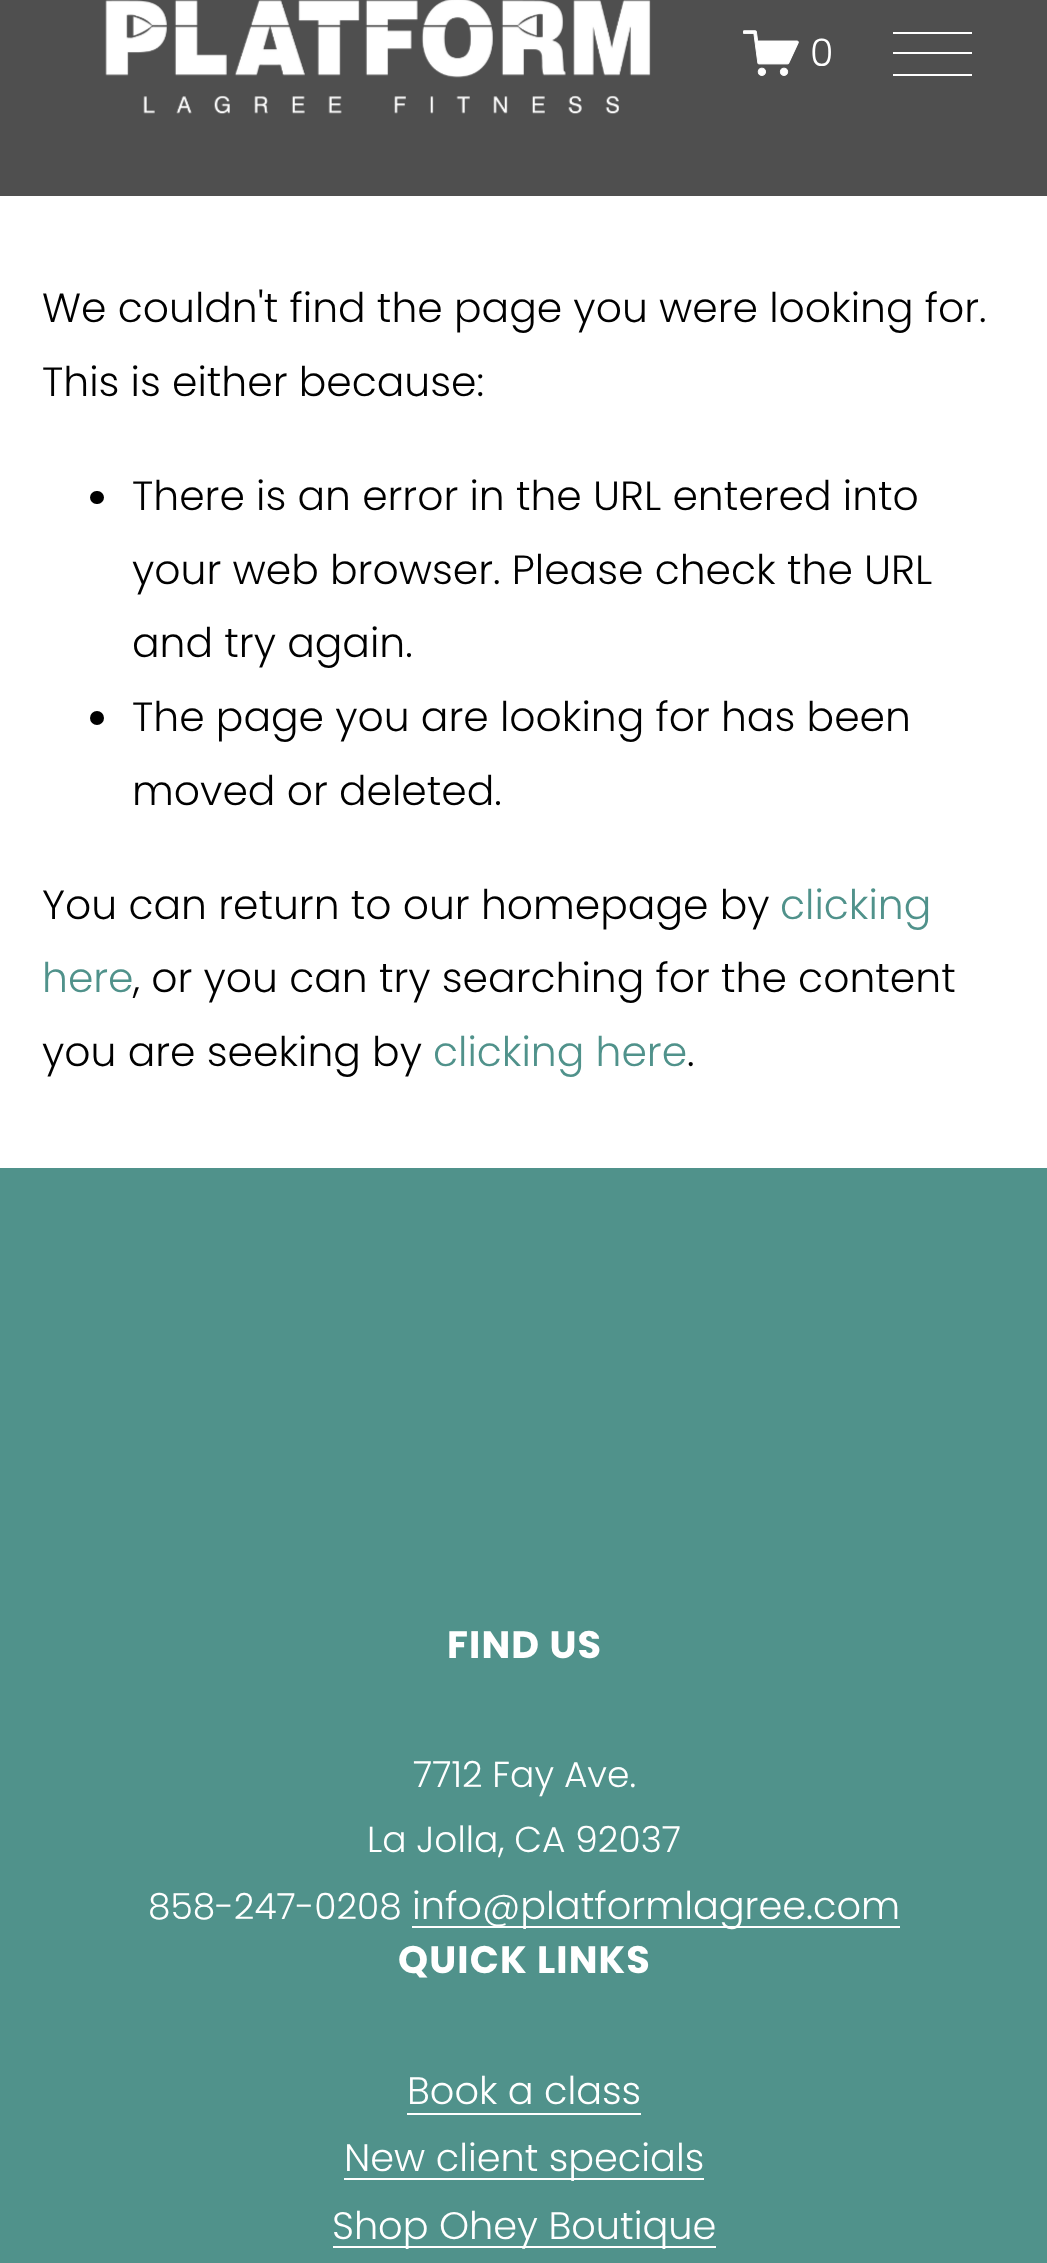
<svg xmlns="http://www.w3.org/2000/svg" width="1047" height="2263">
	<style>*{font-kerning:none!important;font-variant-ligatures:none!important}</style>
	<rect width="100%" height="100%" fill="#FFFFFF" />
	<rect x="0" y="0" width="1047" height="196" fill="#4F4F4F" />
	<image x="105" y="0" width="546" height="114" href="assets/img1.png" />
	<image x="743" y="30" width="56" height="46" href="assets/img2.png" />
	<text x="810" y="66" font-family="Poppins" font-size="38" font-weight="300" fill="#FFFFFF">0</text>
	<rect x="893" y="32" width="79" height="2" fill="#FFFFFF" />
	<rect x="893" y="52" width="79" height="2" fill="#FFFFFF" />
	<rect x="893" y="74" width="79" height="2" fill="#FFFFFF" />
	<g font-family="Poppins" font-size="40.9" font-weight="300" fill="#000000">
		<text x="42" y="322">We couldn't find the page you were looking for.</text>
		<text x="42" y="396">This is either because:</text>
	</g>
	<rect x="90" y="491" width="14" height="13" rx="6.5" fill="#000000" />
	<g font-family="Poppins" font-size="40.9" font-weight="300" fill="#000000">
		<text x="132" y="510">There is an error in the URL entered into</text>
		<text x="132" y="584">your web browser. Please check the URL</text>
		<text x="132" y="657">and try again.</text>
	</g>
	<circle cx="97" cy="718" r="7" fill="#000000" />
	<g font-family="Poppins" font-size="40.9" font-weight="300" fill="#000000">
		<text x="132" y="731">The page you are looking for has been</text>
		<text x="132" y="805">moved or deleted.</text>
		<text x="42" y="919">You can return to our homepage by</text>
	</g>
	<g font-family="Poppins" font-size="40.9" font-weight="300" fill="#50928B">
		<text x="780" y="919">clicking</text>
		<text x="42" y="992">here</text>
	</g>
	<g font-family="Poppins" font-size="40.9" font-weight="300" fill="#000000">
		<text x="133" y="992">, or you can try searching for the content</text>
		<text x="42" y="1066">you are seeking by</text>
	</g>
	<text x="433" y="1066" font-family="Poppins" font-size="40.9" font-weight="300" fill="#50928B">clicking here</text>
	<text x="687" y="1066" font-family="Poppins" font-size="40.9" font-weight="300" fill="#000000">.</text>
	<rect x="0" y="1168" width="1047" height="1095" fill="#50928B" />
	<text x="447" y="1658" font-family="Poppins" font-size="38.25" font-weight="700" letter-spacing="1.1" fill="#FFFFFF">FIND US</text>
	<g font-family="Poppins" font-size="36" font-weight="300" fill="#FFFFFF">
		<text x="413" y="1787">7712 Fay Ave.</text>
		<text x="367" y="1852">La Jolla, CA 92037</text>
		<text x="148" y="1919">858-247-0208</text>
	</g>
	<rect x="412" y="1926" width="488" height="2" fill="#FFFFFF" />
	<text x="412" y="1919" font-family="Poppins" font-size="38.25" font-weight="300" fill="#FFFFFF">info@platformlagree.com</text>
	<text x="398" y="1973" font-family="Poppins" font-size="38.25" font-weight="700" letter-spacing="1.1" fill="#FFFFFF">QUICK LINKS</text>
	<text x="407" y="2104" font-family="Poppins" font-size="38.25" font-weight="300" fill="#FFFFFF">Book a class</text>
	<rect x="407" y="2113" width="234" height="2" fill="#FFFFFF" />
	<rect x="344" y="2178" width="360" height="2" fill="#FFFFFF" />
	<text x="344" y="2171" font-family="Poppins" font-size="38.25" font-weight="300" fill="#FFFFFF">New client specials</text>
	<rect x="333" y="2246" width="383" height="2" fill="#FFFFFF" />
	<text x="332" y="2239" font-family="Poppins" font-size="38.25" font-weight="300" fill="#FFFFFF">Shop Ohey Boutique</text>
</svg>
